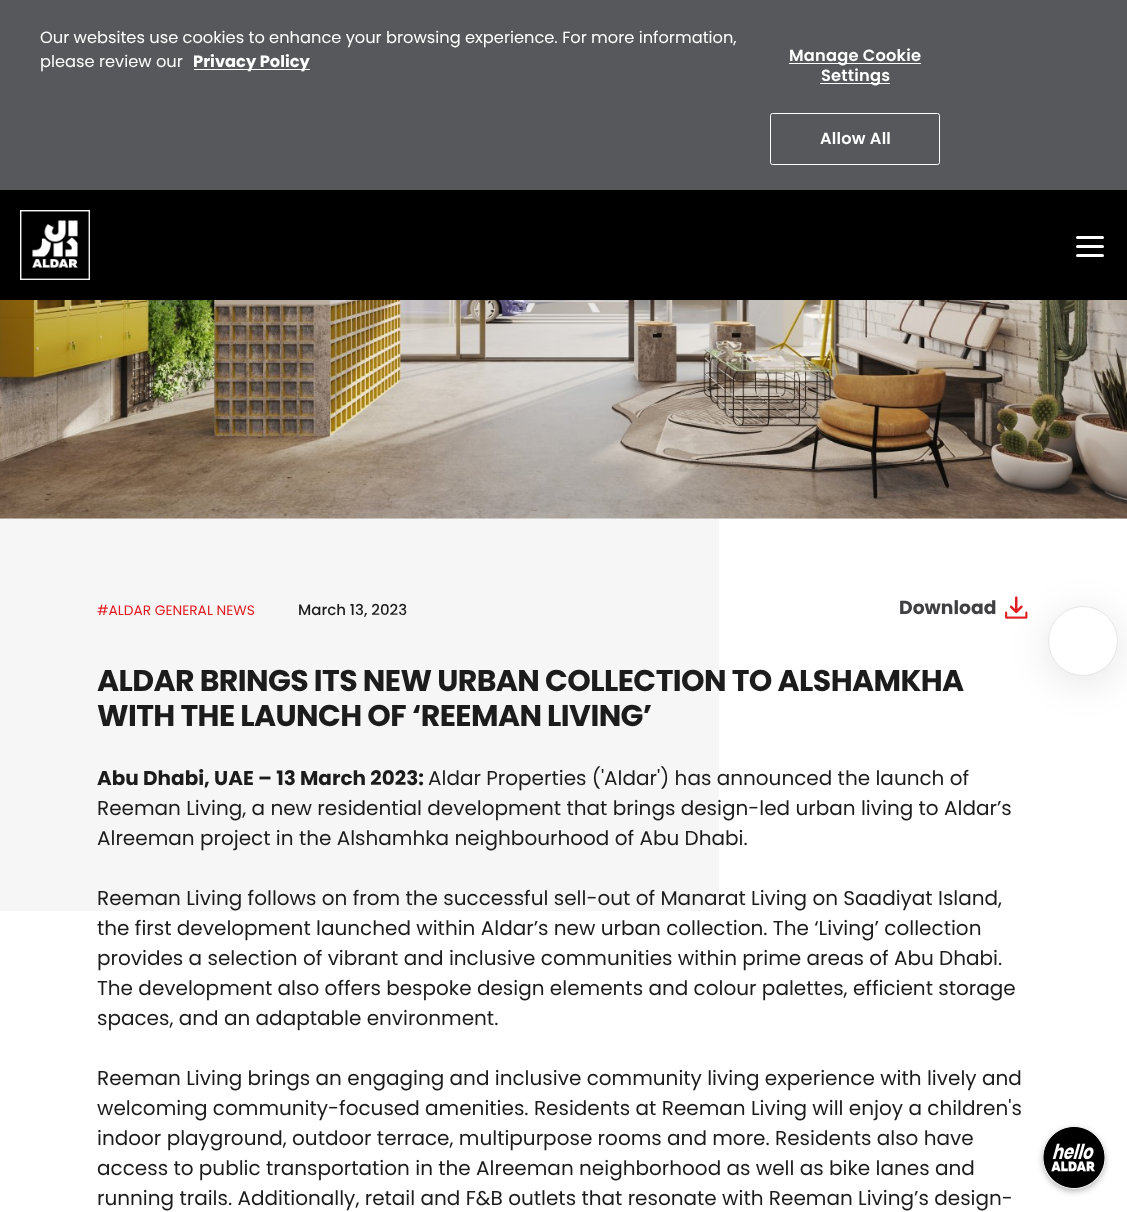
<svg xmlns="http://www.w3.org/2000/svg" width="1127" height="1212">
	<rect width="100%" height="100%" fill="#FFFFFF" />
	<rect x="0" y="0" width="1127" height="190" fill="#57585B" />
	<g font-family="Poppins" font-size="16.25" fill="#FFFFFF">
		<text x="40" y="43">Our websites use cookies to enhance your browsing experience. For more information,</text>
		<text x="40" y="67">please review our</text>
	</g>
	<rect x="194" y="69" width="116" height="1" fill="#FFFFFF" />
	<text x="193" y="67" font-family="Poppins" font-size="16.25" font-weight="700" fill="#FFFFFF">Privacy Policy</text>
	<rect x="789" y="63" width="132" height="1" fill="#FFFFFF" />
	<text x="789" y="61" font-family="Poppins" font-size="16.25" font-weight="600" letter-spacing="0.2" fill="#FFFFFF">Manage Cookie</text>
	<rect x="820" y="83" width="70" height="1" fill="#FFFFFF" />
	<text x="821" y="81" font-family="Poppins" font-size="16.25" font-weight="600" letter-spacing="0.2" fill="#FFFFFF">Settings</text>
	<rect x="770.5" y="113.5" width="169" height="51" rx="2" fill="none" stroke="#FFFFFF" />
	<text x="820" y="144" font-family="Poppins" font-size="16.25" font-weight="600" letter-spacing="0.2" fill="#FFFFFF">Allow All</text>
	<rect x="0" y="190" width="1127" height="110" fill="#000000" />
	<image x="20" y="210" width="70" height="70" href="assets/img1.png" />
	<rect x="1076" y="245" width="28" height="3" rx="1.5" fill="#FFFFFF" />
	<rect x="1076" y="236" width="28" height="3" rx="1.5" fill="#FFFFFF" />
	<rect x="1076" y="254" width="28" height="3" rx="1.5" fill="#FFFFFF" />
	<image x="1005" y="596" width="23" height="23" href="assets/img3.png" />
	<rect x="1048" y="613" width="70" height="70" rx="35" fill="#000000" fill-opacity="0.1" filter="blur(19px)" />
	<circle cx="1083" cy="641" r="34.5" fill="#FFFFFF" stroke="#E6E7E8" />
	<image x="0" y="300" width="1127" height="219" href="assets/img2.png" />
	<rect x="0" y="519" width="719" height="392" fill="#F6F6F6" />
	<text x="899" y="614" font-family="Poppins" font-size="18.75" font-weight="700" fill="#404042">Download</text>
	<text x="97" y="615" font-family="Poppins" font-size="13.75" fill="#E11B22">#ALDAR GENERAL NEWS</text>
	<text x="298" y="615" font-family="Poppins" font-size="15" font-weight="500" fill="#1C1C1C">March 13, 2023</text>
	<g font-family="Poppins" font-size="30" font-weight="700" letter-spacing="-0.6" fill="#1C1C1C">
		<text x="97" y="691">ALDAR BRINGS ITS NEW URBAN COLLECTION TO ALSHAMKHA</text>
		<text x="97" y="726">WITH THE LAUNCH OF ‘REEMAN LIVING’</text>
	</g>
	<text x="97" y="785" font-family="Poppins" font-size="20" font-weight="700" fill="#1C1C1C">Abu Dhabi, UAE – 13 March 2023:</text>
	<g font-family="Poppins" font-size="20" fill="#1C1C1C">
		<text x="428" y="785">Aldar Properties ('Aldar') has announced the launch of</text>
		<text x="97" y="815">Reeman Living, a new residential development that brings design-led urban living to Aldar’s</text>
		<text x="97" y="845">Alreeman project in the Alshamhka neighbourhood of Abu Dhabi.</text>
		<text x="97" y="905">Reeman Living follows on from the successful sell-out of Manarat Living on Saadiyat Island,</text>
		<text x="97" y="935">the first development launched within Aldar’s new urban collection. The ‘Living’ collection</text>
		<text x="97" y="965">provides a selection of vibrant and inclusive communities within prime areas of Abu Dhabi.</text>
		<text x="97" y="995">The development also offers bespoke design elements and colour palettes, efficient storage</text>
		<text x="97" y="1025">spaces, and an adaptable environment.</text>
		<text x="97" y="1085">Reeman Living brings an engaging and inclusive community living experience with lively and</text>
		<text x="97" y="1115">welcoming community-focused amenities. Residents at Reeman Living will enjoy a children's</text>
		<text x="97" y="1145">indoor playground, outdoor terrace, multipurpose rooms and more. Residents also have</text>
		<text x="97" y="1175">access to public transportation in the Alreeman neighborhood as well as bike lanes and</text>
		<text x="97" y="1205">running trails. Additionally, retail and F&amp;B outlets that resonate with Reeman Living’s design-</text>
	</g>
	<rect x="1043" y="1129" width="62" height="62" rx="31" fill="#000000" fill-opacity="0.3" filter="blur(3px)" />
	<image x="1043" y="1126" width="62" height="63" href="assets/img4.png" />
</svg>
